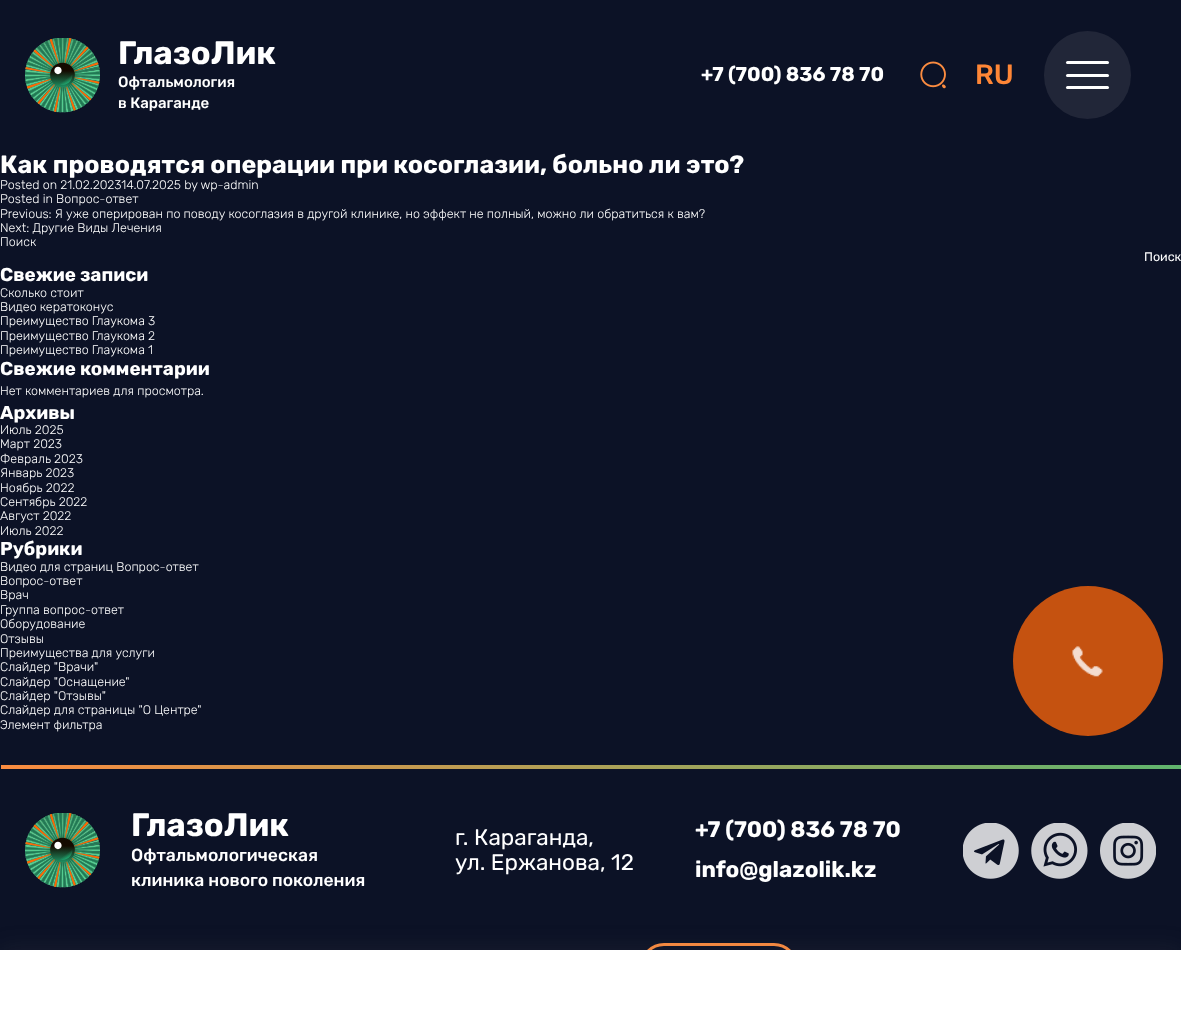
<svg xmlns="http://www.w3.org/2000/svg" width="1181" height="1012">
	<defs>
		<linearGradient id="g1" gradientUnits="userSpaceOnUse" x1="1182" y1="767" x2="0.6" y2="767"><stop offset="0" stop-color="#60B56E" /><stop offset="1" stop-color="#FB8C40" /></linearGradient>
	</defs>
	<rect width="100%" height="100%" fill="#0C1226" />
	<image x="25" y="38" width="75" height="75" href="assets/img1.png" />
	<text x="118" y="64" font-family="Rubik" font-size="32.5" font-weight="700" fill="#FFFFFF">ГлазоЛик</text>
	<g font-family="Rubik" font-size="15" font-weight="500" fill="#FFFFFF">
		<text x="118" y="87">Офтальмология</text>
		<text x="118" y="108">в Караганде</text>
	</g>
	<text x="701" y="81" font-family="Rubik" font-size="20" font-weight="700" fill="#FFFFFF">+7 (700) 836 78 70</text>
	<image x="920" y="61" width="26" height="28" href="assets/img2.png" />
	<text x="975" y="84" font-family="Rubik" font-size="28" font-weight="500" fill="#FF8636">RU</text>
	<rect x="1044" y="31" width="87" height="88" rx="43.5" fill="#212638" />
	<rect x="1066" y="74" width="43" height="3" rx="1.5" fill="#FFFFFF" />
	<rect x="1066" y="61" width="43" height="3" rx="1.5" fill="#FFFFFF" />
	<rect x="1066" y="86" width="43" height="3" rx="1.5" fill="#FFFFFF" />
	<text x="0" y="173" font-family="Rubik" font-size="25" font-weight="700" fill="#FFFFFF">Как проводятся операции при косоглазии, больно ли это?</text>
	<g font-family="Rubik" font-size="12.5" font-weight="300" fill="#FFFFFF">
		<text x="0" y="189">Posted on 21.02.202314.07.2025 by wp-admin</text>
		<text x="0" y="203">Posted in Вопрос-ответ</text>
		<text x="0" y="218">Previous: Я уже оперирован по поводу косоглазия в другой клинике, но эффект не полный, можно ли обратиться к вам?</text>
		<text x="0" y="232">Next: Другие Виды Лечения</text>
		<text x="0" y="246">Поиск</text>
	</g>
	<text x="1144" y="261" font-family="Rubik" font-size="12.5" fill="#FFFFFF">Поиск</text>
	<text x="0" y="281" font-family="Rubik" font-size="18.75" font-weight="700" fill="#FFFFFF">Свежие записи</text>
	<g font-family="Rubik" font-size="12.5" font-weight="300" fill="#FFFFFF">
		<text x="0" y="297">Сколько стоит</text>
		<text x="0" y="311">Видео кератоконус</text>
		<text x="0" y="325">Преимущество Глаукома 3</text>
		<text x="0" y="340">Преимущество Глаукома 2</text>
		<text x="0" y="354">Преимущество Глаукома 1</text>
	</g>
	<text x="0" y="375" font-family="Rubik" font-size="18.75" font-weight="700" fill="#FFFFFF">Свежие комментарии</text>
	<text x="0" y="395" font-family="Rubik" font-size="12.5" font-weight="300" fill="#FFFFFF">Нет комментариев для просмотра.</text>
	<text x="0" y="419" font-family="Rubik" font-size="18.75" font-weight="700" fill="#FFFFFF">Архивы</text>
	<g font-family="Rubik" font-size="12.5" font-weight="300" fill="#FFFFFF">
		<text x="0" y="434">Июль 2025</text>
		<text x="0" y="448">Март 2023</text>
		<text x="0" y="463">Февраль 2023</text>
		<text x="0" y="477">Январь 2023</text>
		<text x="0" y="492">Ноябрь 2022</text>
		<text x="0" y="506">Сентябрь 2022</text>
		<text x="0" y="520">Август 2022</text>
		<text x="0" y="535">Июль 2022</text>
	</g>
	<text x="0" y="555" font-family="Rubik" font-size="18.75" font-weight="700" fill="#FFFFFF">Рубрики</text>
	<g font-family="Rubik" font-size="12.5" font-weight="300" fill="#FFFFFF">
		<text x="0" y="571">Видео для страниц Вопрос-ответ</text>
		<text x="0" y="585">Вопрос-ответ</text>
		<text x="0" y="599">Врач</text>
		<text x="0" y="614">Группа вопрос-ответ</text>
		<text x="0" y="628">Оборудование</text>
		<text x="0" y="643">Отзывы</text>
		<text x="0" y="657">Преимущества для услуги</text>
		<text x="0" y="671">Слайдер "Врачи"</text>
		<text x="0" y="686">Слайдер "Оснащение"</text>
		<text x="0" y="700">Слайдер "Отзывы"</text>
		<text x="0" y="714">Слайдер для страницы "О Центре"</text>
		<text x="0" y="729">Элемент фильтра</text>
	</g>
	<rect x="1" y="765" width="1180" height="4" fill="url(#g1)" />
	<image x="25" y="813" width="75" height="75" href="assets/img3.png" />
	<text x="131" y="836" font-family="Rubik" font-size="32.5" font-weight="700" fill="#FFFFFF">ГлазоЛик</text>
	<g font-family="Rubik" font-size="17.5" font-weight="500" fill="#FFFFFF">
		<text x="131" y="861">Офтальмологическая</text>
		<text x="131" y="886">клиника нового поколения</text>
	</g>
	<g font-family="Rubik" font-size="22.5" fill="#FFFFFF">
		<text x="455" y="845">г. Караганда,</text>
		<text x="455" y="870">ул. Ержанова, 12</text>
	</g>
	<g font-family="Rubik" font-size="22.5" font-weight="700" fill="#FFFFFF">
		<text x="695" y="837">+7 (700) 836 78 70</text>
		<text x="695" y="877">info@glazolik.kz</text>
	</g>
	<image x="963" y="823" width="56" height="56" href="assets/img4.png" />
	<image x="1031" y="823" width="57" height="56" href="assets/img5.png" />
	<image x="1100" y="823" width="56" height="56" href="assets/img6.png" />
	<rect x="641.5" y="944.5" width="155" height="45" rx="22.5" fill="none" stroke="#FC8C40" stroke-width="3" />
	<rect x="0" y="950" width="1181" height="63" fill="#5C5C5C" fill-opacity="0.16" filter="blur(12.5px)" />
	<rect x="0" y="950" width="1181" height="62" fill="#FFFFFF" />
	<circle cx="1088" cy="661" r="75" fill="#C55210" />
	<image x="1072" y="646" width="31" height="31" href="assets/img7.png" />
</svg>
